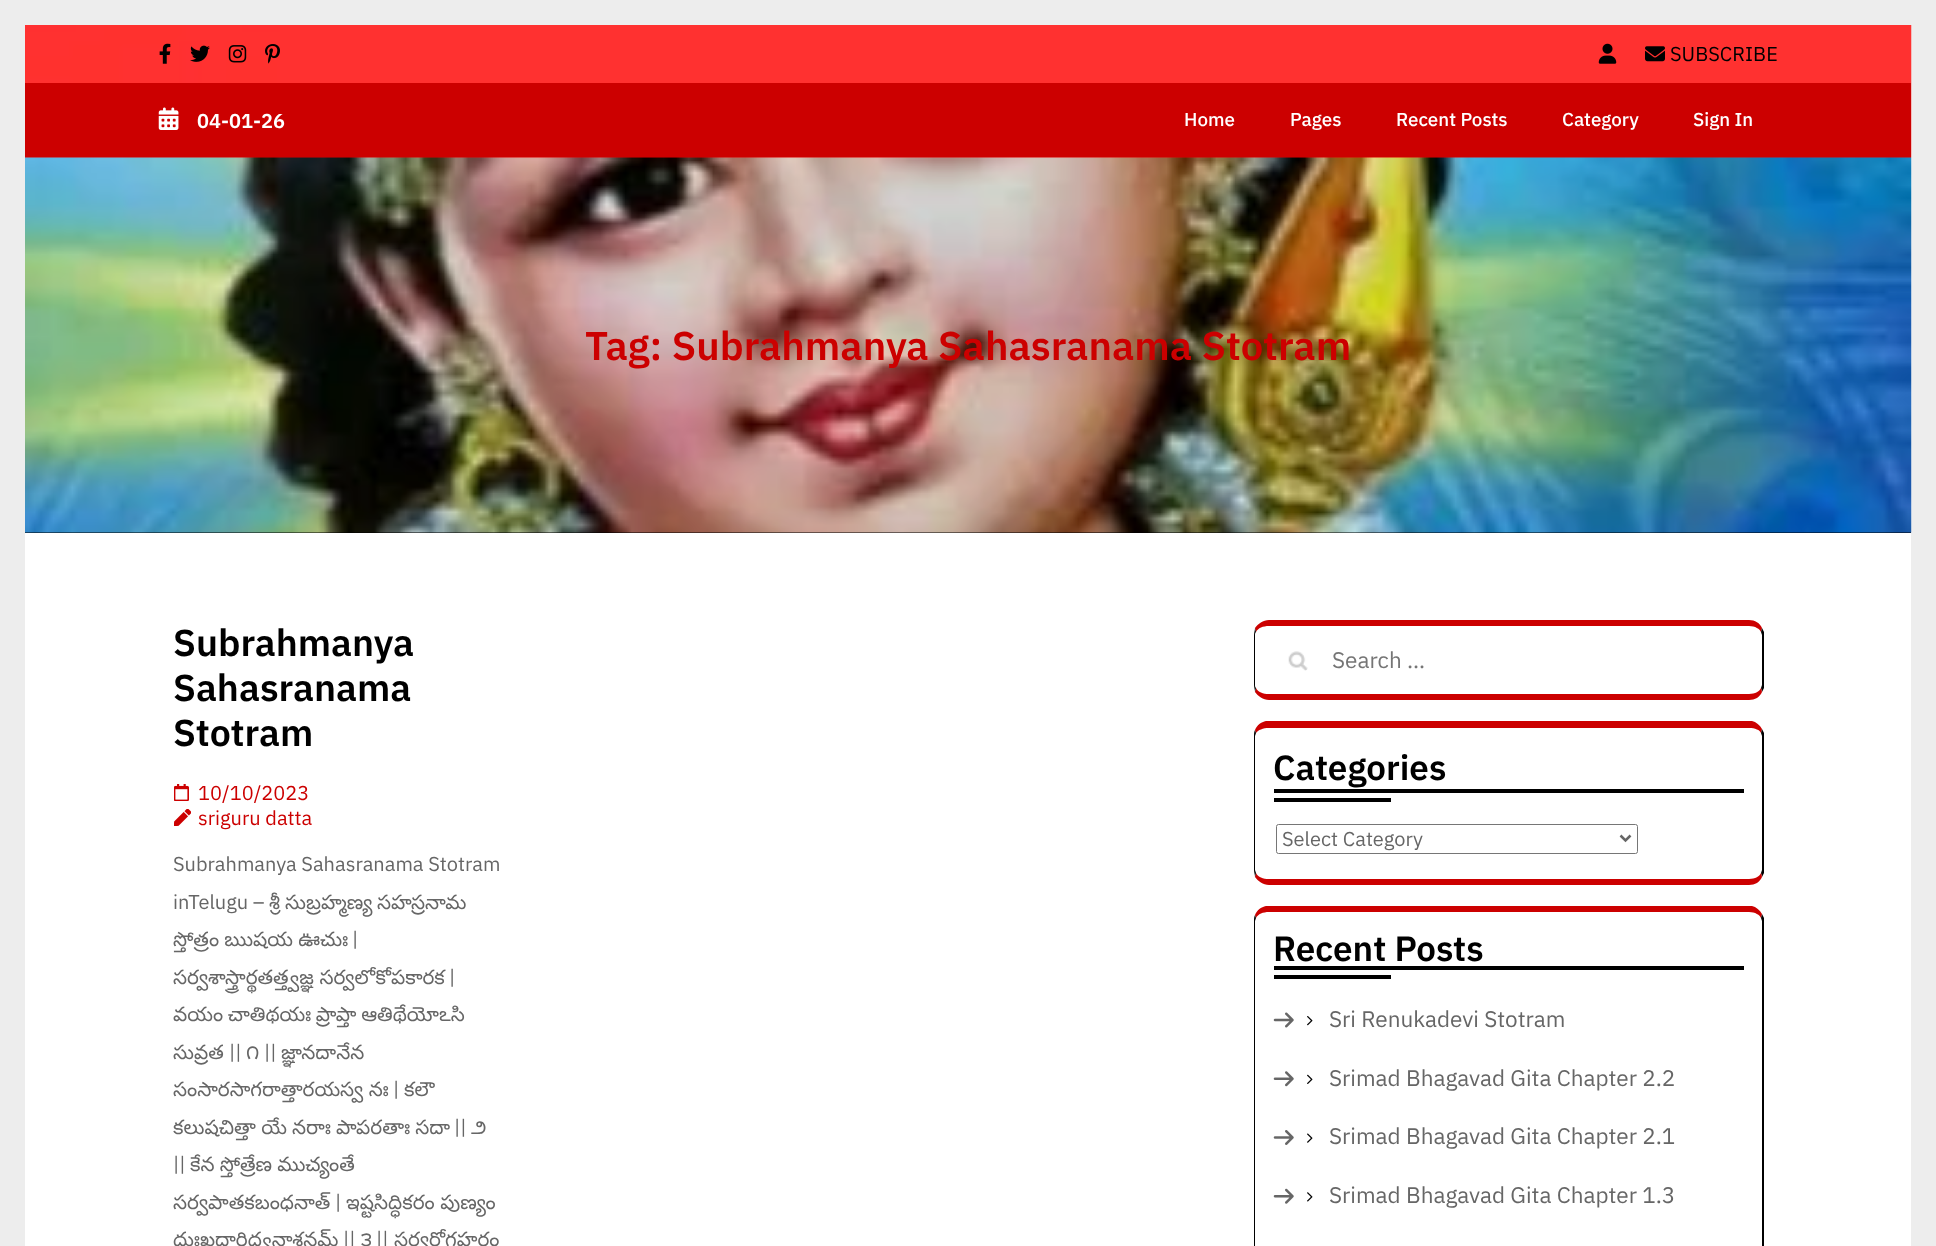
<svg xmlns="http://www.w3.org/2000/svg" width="1936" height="1246">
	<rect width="100%" height="100%" fill="#EDEDED" />
	<rect x="25" y="533" width="1886" height="713" fill="#FFFFFF" />
	<image x="25" y="25" width="1887" height="133" href="assets/img1.png" />
	<image x="159" y="43" width="12" height="21" href="assets/img2.png" />
	<image x="190" y="45" width="20" height="17" href="assets/img3.png" />
	<image x="228" y="45" width="19" height="18" href="assets/img4.png" />
	<image x="265" y="44" width="15" height="20" href="assets/img5.png" />
	<image x="1598" y="43" width="19" height="21" href="assets/img6.png" />
	<image x="1645" y="46" width="20" height="16" href="assets/img7.png" />
	<text x="1670" y="61" font-family="IBM Plex Sans" font-size="20" fill="#000000">SUBSCRIBE</text>
	<rect x="25" y="83" width="1886" height="75" fill="#CC0000" />
	<image x="158" y="107" width="21" height="23" href="assets/img8.png" />
	<text x="197" y="128" font-family="IBM Plex Sans" font-size="20" font-weight="600" fill="#FFFFFF">04-01-26</text>
	<g font-family="IBM Plex Sans" font-size="18.75" font-weight="500" fill="#FFFFFF">
		<text x="1184" y="126">Home</text>
		<text x="1290" y="126">Pages</text>
		<text x="1396" y="126">Recent Posts</text>
		<text x="1562" y="126">Category</text>
		<text x="1693" y="126">Sign In</text>
	</g>
	<rect x="25" y="158" width="1886" height="375" fill="#000000" />
	<image x="25" y="157" width="1887" height="376" href="assets/img9.png" />
	<text x="585" y="360" font-family="IBM Plex Sans" font-size="40" font-weight="600" fill="#CC0000">Tag: Subrahmanya Sahasranama Stotram</text>
	<g font-family="IBM Plex Sans" font-size="37.5" font-weight="600" fill="#000000">
		<text x="173" y="656">Subrahmanya</text>
		<text x="173" y="701">Sahasranama</text>
		<text x="173" y="746">Stotram</text>
	</g>
	<image x="174" y="784" width="15" height="17" href="assets/img10.png" />
	<text x="198" y="800" font-family="IBM Plex Sans" font-size="20" fill="#CC0000">10/10/2023</text>
	<image x="174" y="809" width="17" height="17" href="assets/img11.png" />
	<text x="198" y="825" font-family="IBM Plex Sans" font-size="20" fill="#CC0000">sriguru datta</text>
	<g font-family="IBM Plex Sans" font-size="20" fill="#666666">
		<text x="173" y="871">Subrahmanya Sahasranama Stotram</text>
		<text x="173" y="909">inTelugu –</text>
	</g>
	<g font-family="Noto Sans Telugu" font-size="20" fill="#666666">
		<text x="269" y="909">శ్రీ</text>
		<text x="285" y="909">సుబ్రహ్మణ్య</text>
		<text x="377" y="909">సహస్రనామ</text>
		<text x="173" y="946" word-spacing="-0.5">స్తోత్రం ఋషయ ఊచుః</text>
	</g>
	<text x="352" y="946" font-family="IBM Plex Sans" font-size="20" fill="#666666">|</text>
	<text x="173" y="984" font-family="Noto Sans Telugu" font-size="20" fill="#666666">సర్వశాస్త్రార్థతత్త్వజ్ఞ సర్వలోకోపకారక</text>
	<text x="449" y="984" font-family="IBM Plex Sans" font-size="20" fill="#666666">|</text>
	<g font-family="Noto Sans Telugu" font-size="20" fill="#666666">
		<text x="173" y="1021" word-spacing="-1">వయం చాతిథయః ప్రాప్తా ఆతిథేయోఽసి</text>
		<text x="173" y="1059">సువ్రత</text>
	</g>
	<text x="229" y="1059" font-family="IBM Plex Sans" font-size="20" fill="#666666">||</text>
	<text x="246" y="1059" font-family="Noto Sans Telugu" font-size="20" fill="#666666">౧</text>
	<text x="264" y="1059" font-family="IBM Plex Sans" font-size="20" fill="#666666">||</text>
	<g font-family="Noto Sans Telugu" font-size="20" fill="#666666">
		<text x="281" y="1059">జ్ఞానదానేన</text>
		<text x="173" y="1096">సంసారసాగరాత్తారయస్వ నః</text>
	</g>
	<text x="393" y="1096" font-family="IBM Plex Sans" font-size="20" fill="#666666">|</text>
	<g font-family="Noto Sans Telugu" font-size="20" fill="#666666">
		<text x="404" y="1096">కలౌ</text>
		<text x="173" y="1134" word-spacing="-0.5">కలుషచిత్తా యే నరాః పాపరతాః సదా</text>
	</g>
	<text x="454" y="1134" font-family="IBM Plex Sans" font-size="20" fill="#666666">||</text>
	<text x="471" y="1134" font-family="Noto Sans Telugu" font-size="20" fill="#666666">౨</text>
	<text x="173" y="1171" font-family="IBM Plex Sans" font-size="20" fill="#666666">||</text>
	<g font-family="Noto Sans Telugu" font-size="20" fill="#666666">
		<text x="190" y="1171" word-spacing="-0.5">కేన స్తోత్రేణ ముచ్యంతే</text>
		<text x="173" y="1209">సర్వపాతకబంధనాత్</text>
	</g>
	<text x="335" y="1209" font-family="IBM Plex Sans" font-size="20" fill="#666666">|</text>
	<g font-family="Noto Sans Telugu" font-size="20" fill="#666666">
		<text x="346" y="1209">ఇష్టసిద్ధికరం పుణ్యం</text>
		<text x="173" y="1246">దుఃఖదారిద్ర్యనాశనమ్</text>
	</g>
	<text x="343" y="1246" font-family="IBM Plex Sans" font-size="20" fill="#666666">||</text>
	<text x="361" y="1246" font-family="Noto Sans Telugu" font-size="20" fill="#666666">౩</text>
	<text x="376" y="1246" font-family="IBM Plex Sans" font-size="20" fill="#666666">||</text>
	<text x="394" y="1246" font-family="Noto Sans Telugu" font-size="20" fill="#666666">సర్వరోగహరం</text>
	<path d="M1269 620C1263 620 1258 624 1255 628L1256 632C1258 628 1263 626 1269 626H1749C1755 626 1760 629 1761 632L1762 628C1760 623 1755 620 1749 620Z" fill="#CC0000" />
	<path d="M1764 688L1762 692L1761 688L1762 685V635L1761 632L1762 628L1764 632Z" fill="#000000" />
	<path d="M1269 700H1749C1755 700 1760 697 1762 692L1761 688C1760 691 1755 694 1749 694H1269C1263 694 1258 692 1256 688L1255 692C1258 696 1263 700 1269 700Z" fill="#CC0000" />
	<path d="M1255 628C1255 630 1254 633 1254 635V685C1254 687 1255 690 1255 692L1256 688C1255 687 1255 686 1255 685V635C1255 634 1255 633 1256 632Z" fill="#000000" />
	<image x="1288" y="651" width="20" height="20" href="assets/img12.png" />
	<text x="1332" y="668" font-family="IBM Plex Sans" font-size="22.5" fill="#757575">Search …</text>
	<path d="M1269 728C1263 728 1258 730 1256 733L1255 730C1257 725 1261 722 1266 721H1752C1756 722 1760 725 1762 729L1761 733C1760 730 1755 728 1749 728Z" fill="#CC0000" />
	<path d="M1764 873L1762 877L1761 873L1762 870V736L1761 733L1762 729L1764 733Z" fill="#000000" />
	<path d="M1269 885H1749C1755 885 1760 882 1762 877L1761 873C1760 876 1755 879 1749 879H1269C1263 879 1258 877 1256 873L1255 877C1258 881 1263 885 1269 885Z" fill="#CC0000" />
	<path d="M1255 877C1255 875 1254 872 1254 870V736C1254 734 1254 732 1255 730L1256 733L1255 736V870L1256 873Z" fill="#000000" />
	<rect x="1274" y="789" width="470" height="4" fill="#000000" />
	<text x="1273" y="780" font-family="IBM Plex Sans" font-size="35" font-weight="600" fill="#000000">Categories</text>
	<rect x="1274" y="798" width="117" height="4" fill="#000000" />
	<rect x="1276.5" y="824.5" width="361" height="29" rx="2" fill="none" stroke="#767676" />
	<path d="M1620.5 835.5L1625.5 840.5L1630.5 835.5" fill="none" stroke="#666666" stroke-width="2.5" />
	<text x="1282" y="846" font-family="IBM Plex Sans" font-size="20" fill="#666666">Select Category</text>
	<path d="M1269 912C1263 912 1258 914 1256 918L1255 915C1257 910 1261 907 1266 906H1752C1756 907 1760 910 1762 914L1761 918C1760 915 1755 912 1749 912Z" fill="#CC0000" />
	<path d="M1764 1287L1762 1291L1761 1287L1762 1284V921L1761 918L1762 914L1764 918Z" fill="#000000" />
	<path d="M1255 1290C1254 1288 1254 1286 1254 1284V921C1254 919 1254 917 1255 915L1256 918L1255 921V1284L1256 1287Z" fill="#000000" />
	<rect x="1274" y="966" width="470" height="4" fill="#000000" />
	<text x="1273" y="961" font-family="IBM Plex Sans" font-size="35" font-weight="600" fill="#000000">Recent Posts</text>
	<rect x="1274" y="975" width="117" height="4" fill="#000000" />
	<image x="1273" y="1012" width="21" height="16" href="assets/img13.png" />
	<image x="1307" y="1016" width="6" height="10" href="assets/img14.png" />
	<text x="1329" y="1027" font-family="IBM Plex Sans" font-size="22.5" fill="#666666">Sri Renukadevi Stotram</text>
	<image x="1273" y="1071" width="21" height="16" href="assets/img15.png" />
	<image x="1307" y="1074" width="6" height="10" href="assets/img16.png" />
	<text x="1329" y="1086" font-family="IBM Plex Sans" font-size="22.5" fill="#666666">Srimad Bhagavad Gita Chapter 2.2</text>
	<image x="1273" y="1130" width="21" height="15" href="assets/img17.png" />
	<image x="1307" y="1133" width="6" height="10" href="assets/img18.png" />
	<text x="1329" y="1144" font-family="IBM Plex Sans" font-size="22.5" fill="#666666">Srimad Bhagavad Gita Chapter 2.1</text>
	<image x="1273" y="1188" width="21" height="16" href="assets/img19.png" />
	<image x="1307" y="1192" width="6" height="10" href="assets/img20.png" />
	<text x="1329" y="1203" font-family="IBM Plex Sans" font-size="22.5" fill="#666666">Srimad Bhagavad Gita Chapter 1.3</text>
</svg>
